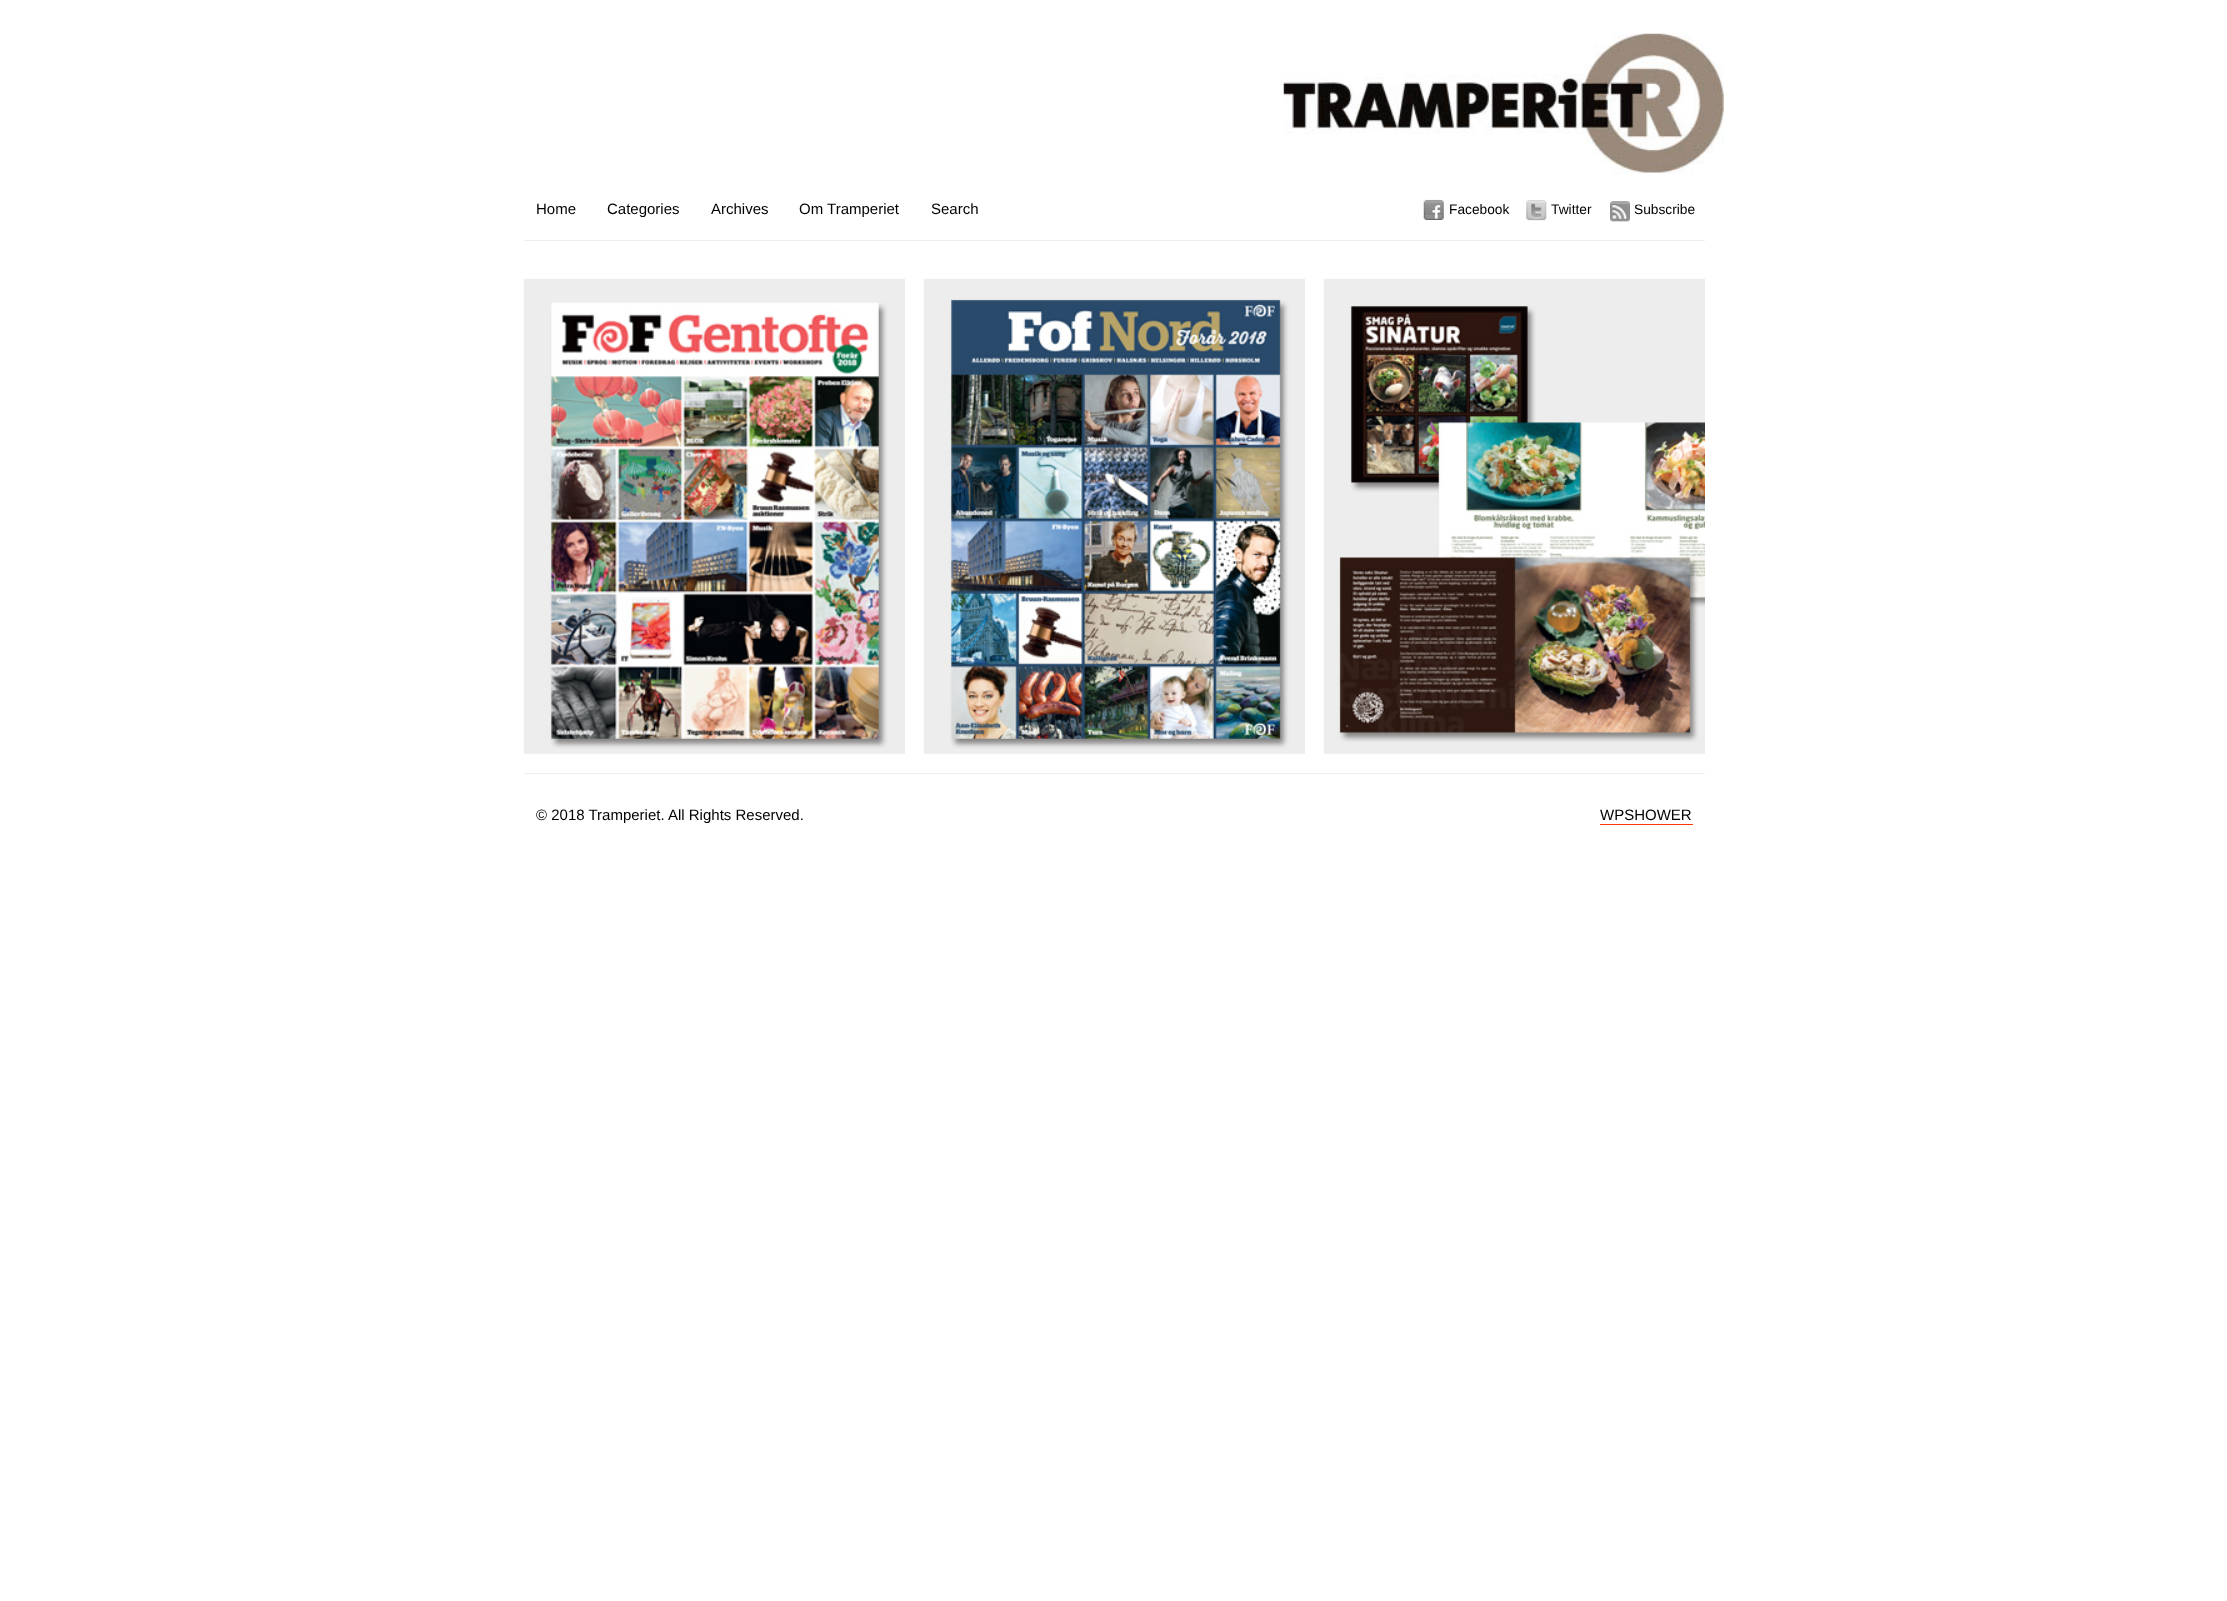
<svg xmlns="http://www.w3.org/2000/svg" width="2227" height="1601">
	<rect width="100%" height="100%" fill="#FFFFFF" />
	<image x="1283" y="33" width="441" height="141" href="assets/img1.png" />
	<rect x="524" y="240" width="1181" height="1" fill="#EEEEEE" />
	<g font-family="Liberation Sans" font-size="15" fill="#000000">
		<text x="536" y="214">Home</text>
		<text x="607" y="214">Categories</text>
		<text x="711" y="214">Archives</text>
		<text x="799" y="214">Om Tramperiet</text>
		<text x="931" y="214">Search</text>
	</g>
	<image x="1423" y="199" width="21" height="21" href="assets/img2.png" />
	<text x="1449" y="214" font-family="Liberation Sans" font-size="13.75" fill="#000000">Facebook</text>
	<image x="1526" y="200" width="21" height="21" href="assets/img3.png" />
	<text x="1551" y="214" font-family="Liberation Sans" font-size="13.75" fill="#000000">Twitter</text>
	<image x="1610" y="201" width="20" height="21" href="assets/img4.png" />
	<text x="1634" y="214" font-family="Liberation Sans" font-size="13.75" fill="#000000">Subscribe</text>
	<image x="523" y="278" width="382" height="476" href="assets/img5.png" />
	<image x="923" y="278" width="382" height="476" href="assets/img6.png" />
	<image x="1323" y="278" width="382" height="476" href="assets/img7.png" />
	<rect x="524" y="773" width="1181" height="1" fill="#EEEEEE" />
	<g font-family="Liberation Sans" font-size="15" fill="#000000">
		<text x="536" y="820">© 2018 Tramperiet. All Rights Reserved.</text>
		<text x="1600" y="820">WPSHOWER</text>
	</g>
	<rect x="1600" y="824" width="93" height="1" fill="#FF3706" />
</svg>
